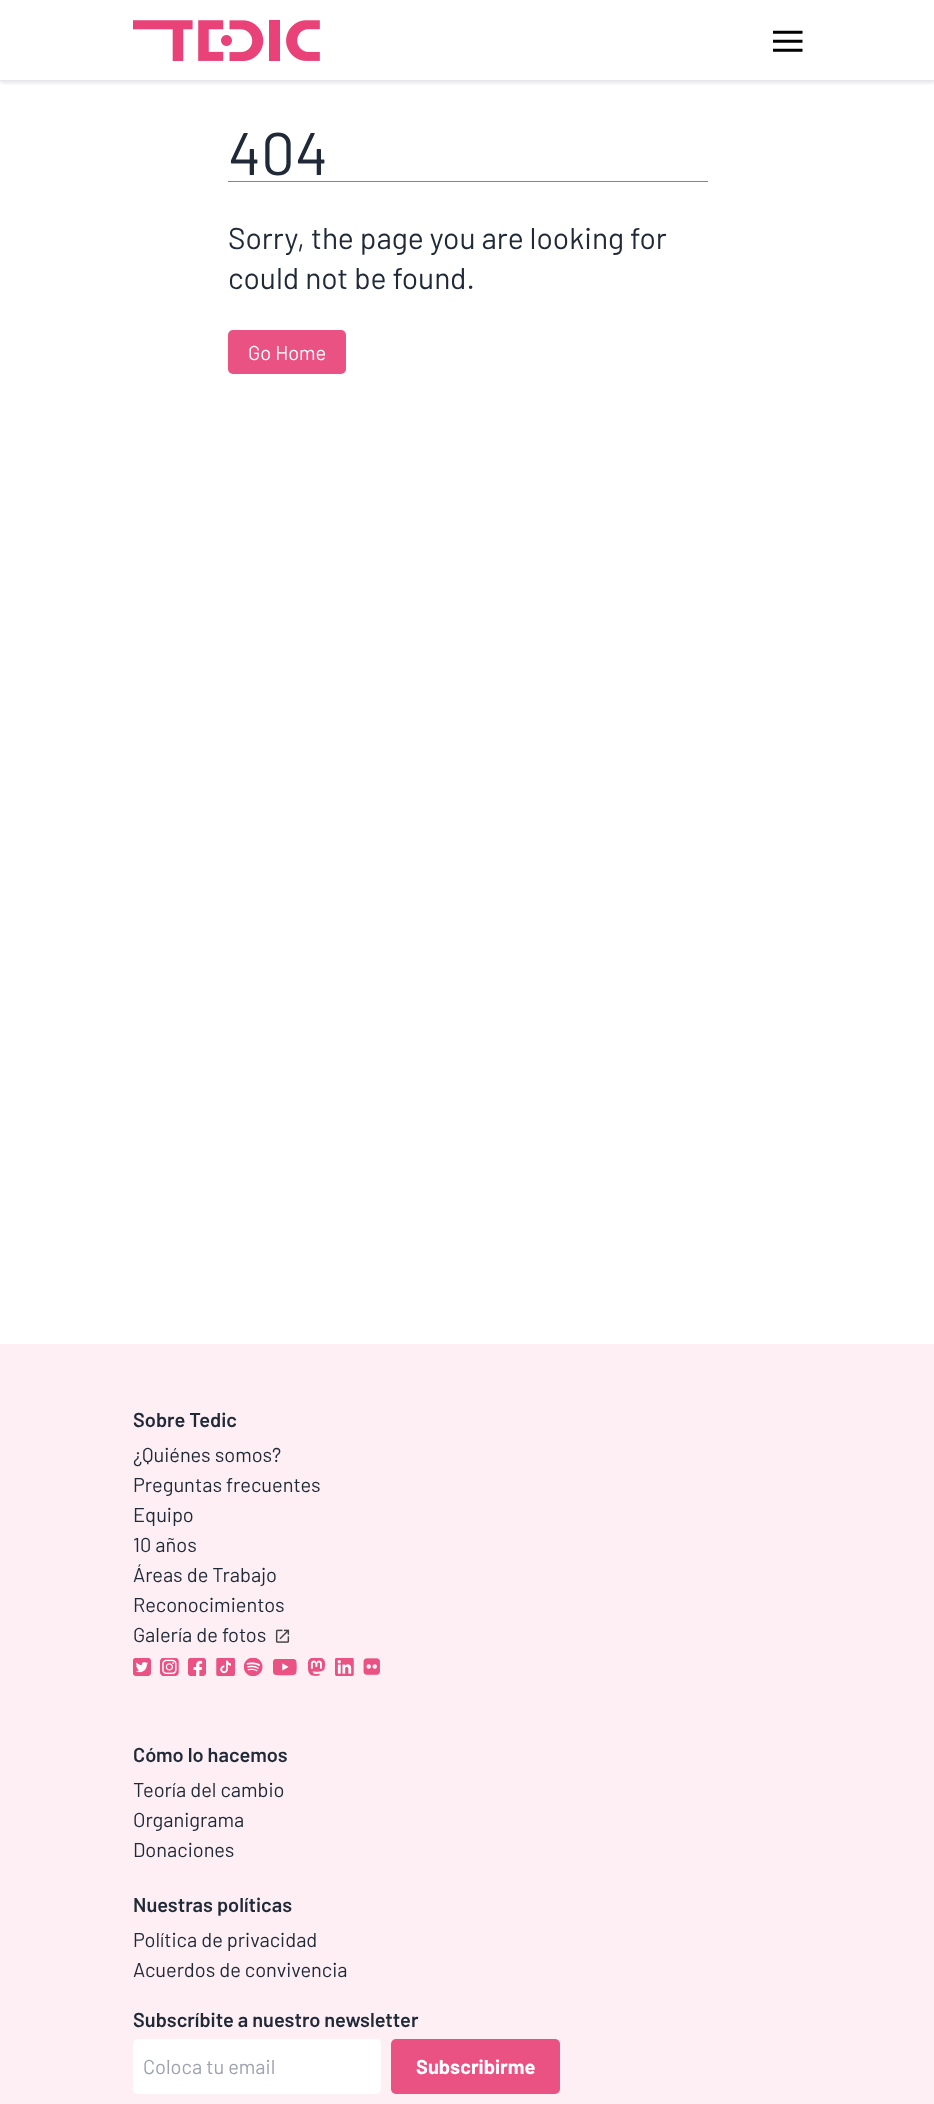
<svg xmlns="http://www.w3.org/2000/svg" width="934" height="2104">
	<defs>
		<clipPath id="clip1"><rect x="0" y="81" width="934" height="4" /></clipPath>
	</defs>
	<rect width="100%" height="100%" fill="#FFFFFF" />
	<g clip-path="url(#clip1)">
		<rect x="0" y="1" width="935" height="82" fill="#000000" fill-opacity="0.1" filter="blur(2px)" />
	</g>
	<rect x="0" y="80" width="934" height="1" fill="#E5E7EB" />
	<image x="133" y="20" width="187" height="41" href="assets/img1.png" />
	<image x="773" y="30" width="30" height="22" href="assets/img2.png" />
	<rect x="228" y="181" width="480" height="1" fill="#EA5284" />
	<text x="228" y="175" font-family="Barlow" font-size="60" fill="#1F2937">404</text>
	<g font-family="Barlow" font-size="30" fill="#1F2937">
		<text x="228" y="249">Sorry, the page you are looking for</text>
		<text x="228" y="289">could not be found.</text>
	</g>
	<rect x="228" y="330" width="118" height="44" rx="5" fill="#EA5284" />
	<text x="248" y="360" font-family="Barlow" font-size="20" fill="#FFFFFF">Go Home</text>
	<rect x="0" y="1344" width="934" height="760" fill="#FEEFF4" />
	<text x="133" y="1427" font-family="Barlow" font-size="20" font-weight="600" fill="#1F2937">Sobre Tedic</text>
	<g font-family="Barlow" font-size="20" fill="#1F2937">
		<text x="133" y="1462">¿Quiénes somos?</text>
		<text x="133" y="1492">Preguntas frecuentes</text>
		<text x="133" y="1522">Equipo</text>
		<text x="133" y="1552">10 años</text>
		<text x="133" y="1582">Áreas de Trabajo</text>
		<text x="133" y="1612">Reconocimientos</text>
		<text x="133" y="1642">Galería de fotos</text>
	</g>
	<image x="275" y="1629" width="15" height="14" href="assets/img3.png" />
	<image x="133" y="1658" width="18" height="18" href="assets/img4.png" />
	<image x="160" y="1658" width="19" height="18" href="assets/img5.png" />
	<image x="188" y="1658" width="18" height="18" href="assets/img6.png" />
	<image x="216" y="1658" width="19" height="18" href="assets/img7.png" />
	<image x="244" y="1658" width="19" height="18" href="assets/img8.png" />
	<image x="273" y="1659" width="24" height="17" href="assets/img9.png" />
	<image x="308" y="1658" width="17" height="18" href="assets/img10.png" />
	<image x="335" y="1658" width="19" height="18" href="assets/img11.png" />
	<image x="363" y="1658" width="17" height="17" href="assets/img12.png" />
	<text x="133" y="1762" font-family="Barlow" font-size="20" font-weight="600" fill="#1F2937">Cómo lo hacemos</text>
	<g font-family="Barlow" font-size="20" fill="#1F2937">
		<text x="133" y="1797">Teoría del cambio</text>
		<text x="133" y="1827">Organigrama</text>
		<text x="133" y="1857">Donaciones</text>
	</g>
	<text x="133" y="1912" font-family="Barlow" font-size="20" font-weight="600" fill="#1F2937">Nuestras políticas</text>
	<g font-family="Barlow" font-size="20" fill="#1F2937">
		<text x="133" y="1947">Política de privacidad</text>
		<text x="133" y="1977">Acuerdos de convivencia</text>
	</g>
	<text x="133" y="2027" font-family="Barlow" font-size="20" font-weight="600" fill="#1F2937">Subscríbite a nuestro newsletter</text>
	<rect x="133" y="2039" width="248" height="55" rx="5" fill="#FFFFFF" />
	<text x="143" y="2074" font-family="Barlow" font-size="20" fill="#9CA3AF">Coloca tu email</text>
	<rect x="391" y="2039" width="169" height="55" rx="5" fill="#EA5284" />
	<text x="416" y="2074" font-family="Barlow" font-size="20" font-weight="700" fill="#FFFFFF">Subscribirme</text>
</svg>
